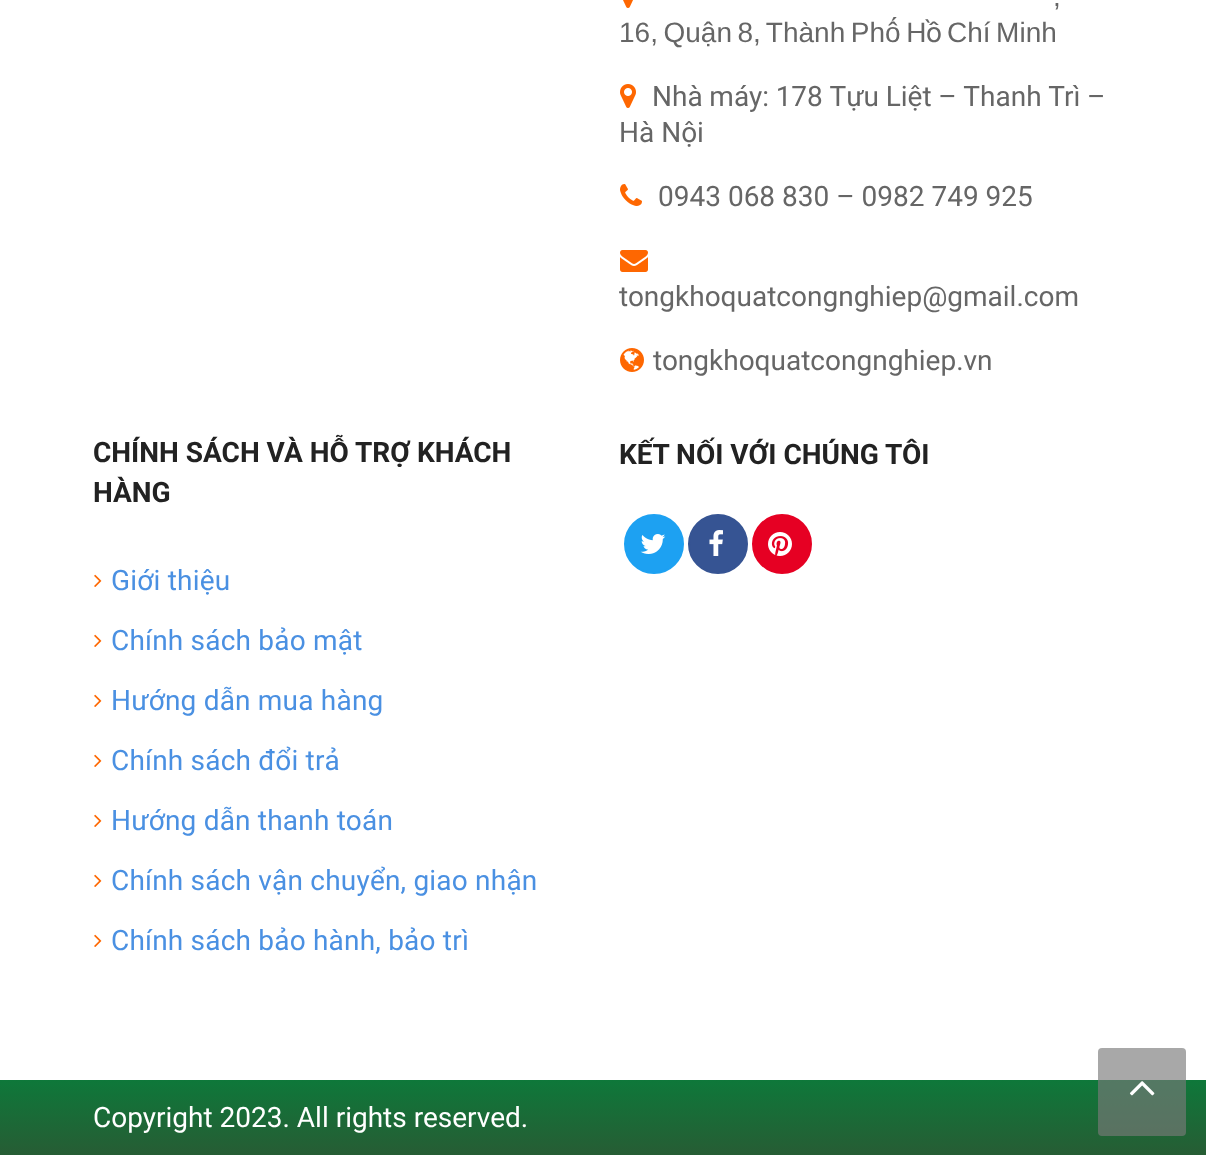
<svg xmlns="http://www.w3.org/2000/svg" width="1206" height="1155">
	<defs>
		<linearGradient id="g1" gradientUnits="userSpaceOnUse" x1="603" y1="1080" x2="603" y2="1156"><stop offset="0" stop-color="#0E783A" /><stop offset="1" stop-color="#275C34" /></linearGradient>
	</defs>
	<rect width="100%" height="100%" fill="#FFFFFF" />
	<image x="623" y="0" width="10" height="8" href="assets/img1.png" />
	<g font-family="Liberation Sans" font-size="28" fill="#666666">
		<text x="1053" y="6" word-spacing="-1">,</text>
		<text x="619" y="42" word-spacing="-2.25">16, Quận 8, Thành Phố H</text>
	</g>
	<text x="926" y="42" font-family="Roboto" font-size="28" fill="#666666">ồ</text>
	<text x="947" y="42" word-spacing="-2.25" font-family="Liberation Sans" font-size="28" fill="#666666">Chí Minh</text>
	<image x="620" y="84" width="16" height="24" href="assets/img2.png" />
	<g font-family="Roboto" font-size="28" fill="#666666">
		<text x="652" y="106" word-spacing="-0.25">Nhà máy: 178 Tựu Liệt – Thanh Trì –</text>
		<text x="619" y="142">Hà Nội</text>
	</g>
	<image x="620" y="184" width="22" height="22" href="assets/img3.png" />
	<text x="658" y="206" font-family="Roboto" font-size="28" fill="#666666">0943 068 830 – 0982 749 925</text>
	<image x="620" y="250" width="28" height="22" href="assets/img4.png" />
	<text x="619" y="306" font-family="Roboto" font-size="28" fill="#666666">tongkhoquatcongnghiep@gmail.com</text>
	<image x="620" y="348" width="24" height="24" href="assets/img5.png" />
	<text x="653" y="370" font-family="Roboto" font-size="28" fill="#666666">tongkhoquatcongnghiep.vn</text>
	<g font-family="Roboto" font-size="28" font-weight="700" fill="#222222">
		<text x="93" y="462">CHÍNH SÁCH VÀ HỖ TRỢ KHÁCH</text>
		<text x="93" y="502">HÀNG</text>
	</g>
	<image x="94" y="574" width="8" height="13" href="assets/img6.png" />
	<text x="111" y="590" font-family="Roboto" font-size="28" letter-spacing="0.2" fill="#4A90E2">Giới thiệu</text>
	<image x="94" y="634" width="8" height="13" href="assets/img6.png" />
	<text x="111" y="650" font-family="Roboto" font-size="28" letter-spacing="0.2" fill="#4A90E2">Chính sách bảo mật</text>
	<image x="94" y="694" width="8" height="13" href="assets/img6.png" />
	<text x="111" y="710" font-family="Roboto" font-size="28" letter-spacing="0.2" fill="#4A90E2">Hướng dẫn mua hàng</text>
	<image x="94" y="754" width="8" height="13" href="assets/img6.png" />
	<text x="111" y="770" font-family="Roboto" font-size="28" letter-spacing="0.2" fill="#4A90E2">Chính sách đổi trả</text>
	<image x="94" y="814" width="8" height="13" href="assets/img6.png" />
	<text x="111" y="830" font-family="Roboto" font-size="28" letter-spacing="0.2" fill="#4A90E2">Hướng dẫn thanh toán</text>
	<image x="94" y="874" width="8" height="13" href="assets/img6.png" />
	<text x="111" y="890" font-family="Roboto" font-size="28" letter-spacing="0.2" fill="#4A90E2">Chính sách vận chuyển, giao nhận</text>
	<image x="94" y="934" width="8" height="13" href="assets/img6.png" />
	<text x="111" y="950" font-family="Roboto" font-size="28" letter-spacing="0.2" fill="#4A90E2">Chính sách bảo hành, bảo trì</text>
	<text x="619" y="464" font-family="Roboto" font-size="28" font-weight="700" fill="#222222">KẾT NỐI VỚI CHÚNG TÔI</text>
	<circle cx="654" cy="544" r="29" fill="#1DA1F2" stroke="#1DA1F2" stroke-width="2" />
	<image x="640" y="534" width="26" height="20" href="assets/img7.png" />
	<circle cx="718" cy="544" r="29" fill="#365493" stroke="#365493" stroke-width="2" />
	<image x="709" y="530" width="14" height="26" href="assets/img8.png" />
	<circle cx="782" cy="544" r="29" fill="#E60023" stroke="#E60023" stroke-width="2" />
	<image x="768" y="532" width="24" height="24" href="assets/img9.png" />
	<rect x="0" y="1080" width="1206" height="75" fill="url(#g1)" />
	<text x="93" y="1127" font-family="Roboto" font-size="28" fill="#FFFFFF">Copyright 2023. All rights reserved.</text>
	<rect x="1098" y="1048" width="88" height="88" rx="4" fill="#797979" fill-opacity="0.65" />
	<image x="1129" y="1081" width="26" height="15" href="assets/img10.png" />
</svg>
